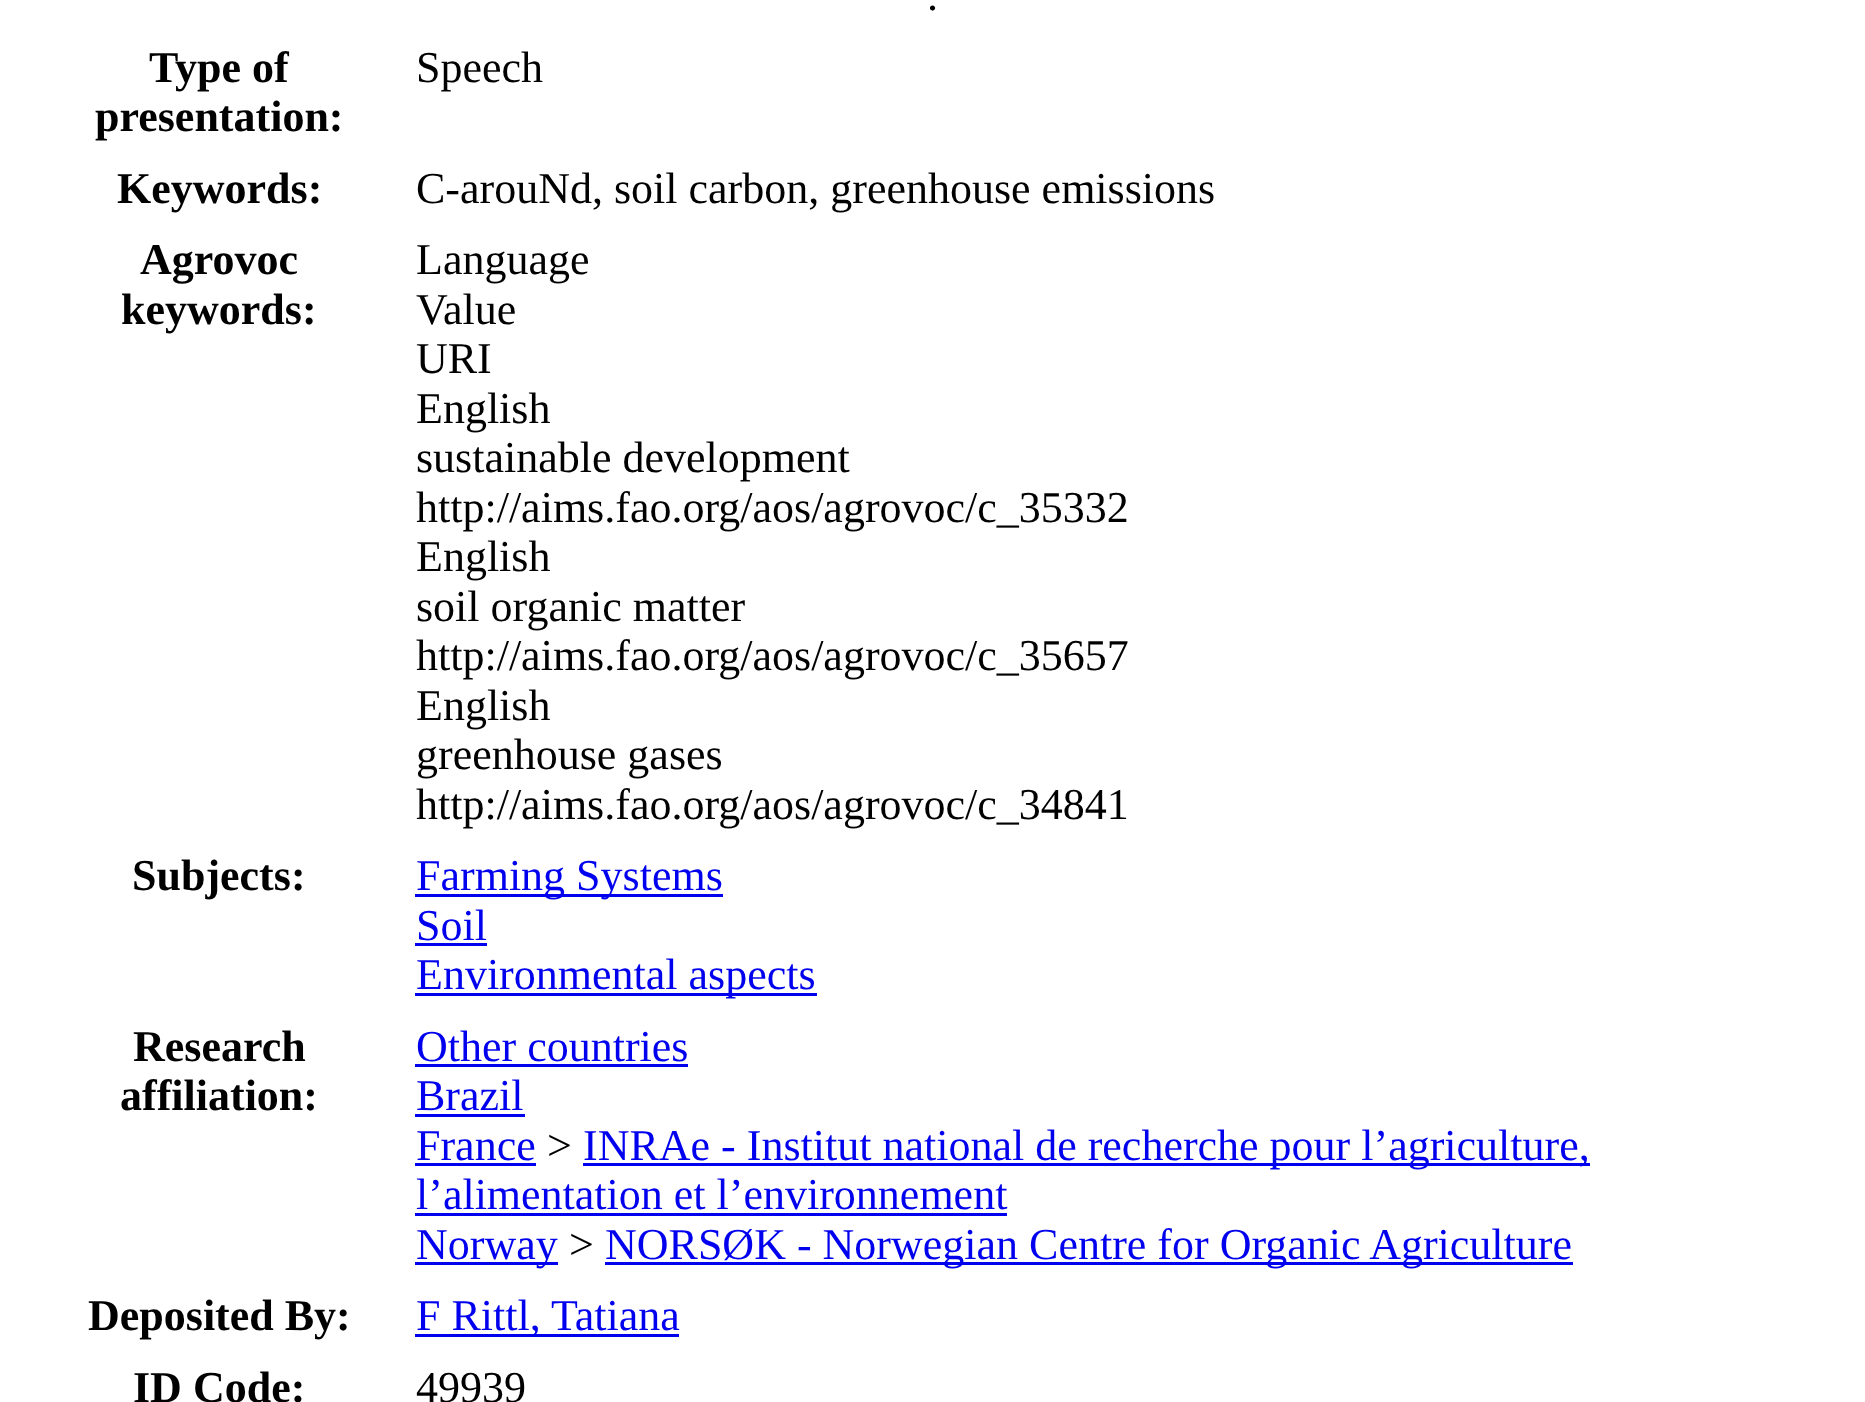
<svg xmlns="http://www.w3.org/2000/svg" width="1865" height="1402">
	<rect width="100%" height="100%" fill="#FFFFFF" />
	<text x="927" y="10" font-family="Liberation Serif" font-size="44" fill="#000000">.</text>
	<g font-family="Liberation Serif" font-size="44" font-weight="700" fill="#000000">
		<text x="149" y="82">Type of</text>
		<text x="95" y="131">presentation:</text>
	</g>
	<text x="416" y="82" font-family="Liberation Serif" font-size="44" fill="#000000">Speech</text>
	<text x="117" y="203" font-family="Liberation Serif" font-size="44" font-weight="700" fill="#000000">Keywords:</text>
	<text x="416" y="203" font-family="Liberation Serif" font-size="44" fill="#000000">C-arouNd, soil carbon, greenhouse emissions</text>
	<g font-family="Liberation Serif" font-size="44" font-weight="700" fill="#000000">
		<text x="140" y="274">Agrovoc</text>
		<text x="121" y="324">keywords:</text>
	</g>
	<g font-family="Liberation Serif" font-size="44" fill="#000000">
		<text x="416" y="274">Language</text>
		<text x="416" y="324">Value</text>
		<text x="416" y="373">URI</text>
		<text x="416" y="423">English</text>
		<text x="416" y="472">sustainable development</text>
		<text x="416" y="522">http://aims.fao.org/aos/agrovoc/c_35332</text>
		<text x="416" y="571">English</text>
		<text x="416" y="621">soil organic matter</text>
		<text x="416" y="670">http://aims.fao.org/aos/agrovoc/c_35657</text>
		<text x="416" y="720">English</text>
		<text x="416" y="769">greenhouse gases</text>
		<text x="416" y="819">http://aims.fao.org/aos/agrovoc/c_34841</text>
	</g>
	<text x="132" y="890" font-family="Liberation Serif" font-size="44" font-weight="700" fill="#000000">Subjects:</text>
	<rect x="415" y="894" width="308" height="3" fill="#0000EE" />
	<g font-family="Liberation Serif" font-size="44" fill="#0000EE">
		<text x="416" y="890">Farming Systems</text>
		<text x="416" y="940">Soil</text>
	</g>
	<rect x="415" y="943" width="72" height="3" fill="#0000EE" />
	<rect x="415" y="993" width="402" height="3" fill="#0000EE" />
	<text x="416" y="989" font-family="Liberation Serif" font-size="44" fill="#0000EE">Environmental aspects</text>
	<g font-family="Liberation Serif" font-size="44" font-weight="700" fill="#000000">
		<text x="133" y="1061">Research</text>
		<text x="120" y="1110">affiliation:</text>
	</g>
	<text x="416" y="1061" font-family="Liberation Serif" font-size="44" fill="#0000EE">Other countries</text>
	<rect x="415" y="1064" width="273" height="3" fill="#0000EE" />
	<text x="416" y="1110" font-family="Liberation Serif" font-size="44" fill="#0000EE">Brazil</text>
	<rect x="415" y="1114" width="110" height="3" fill="#0000EE" />
	<text x="416" y="1160" font-family="Liberation Serif" font-size="44" fill="#0000EE">France</text>
	<rect x="415" y="1163" width="121" height="3" fill="#0000EE" />
	<text x="547" y="1160" font-family="Liberation Serif" font-size="44" fill="#000000">&gt;</text>
	<rect x="583" y="1163" width="1007" height="3" fill="#0000EE" />
	<g font-family="Liberation Serif" font-size="44" fill="#0000EE">
		<text x="583" y="1160">INRAe - Institut national de recherche pour l’agriculture,</text>
		<text x="416" y="1209">l’alimentation et l’environnement</text>
	</g>
	<rect x="415" y="1213" width="592" height="3" fill="#0000EE" />
	<rect x="415" y="1262" width="143" height="3" fill="#0000EE" />
	<text x="416" y="1259" font-family="Liberation Serif" font-size="44" fill="#0000EE">Norway</text>
	<text x="569" y="1259" font-family="Liberation Serif" font-size="44" fill="#000000">&gt;</text>
	<rect x="605" y="1262" width="968" height="3" fill="#0000EE" />
	<text x="605" y="1259" font-family="Liberation Serif" font-size="44" fill="#0000EE">NORSØK - Norwegian Centre for Organic Agriculture</text>
	<text x="88" y="1330" font-family="Liberation Serif" font-size="44" font-weight="700" fill="#000000">Deposited By:</text>
	<rect x="415" y="1334" width="264" height="3" fill="#0000EE" />
	<text x="416" y="1330" font-family="Liberation Serif" font-size="44" fill="#0000EE">F Rittl, Tatiana</text>
	<text x="133" y="1402" font-family="Liberation Serif" font-size="44" font-weight="700" fill="#000000">ID Code:</text>
	<text x="416" y="1402" font-family="Liberation Serif" font-size="44" fill="#000000">49939</text>
</svg>
